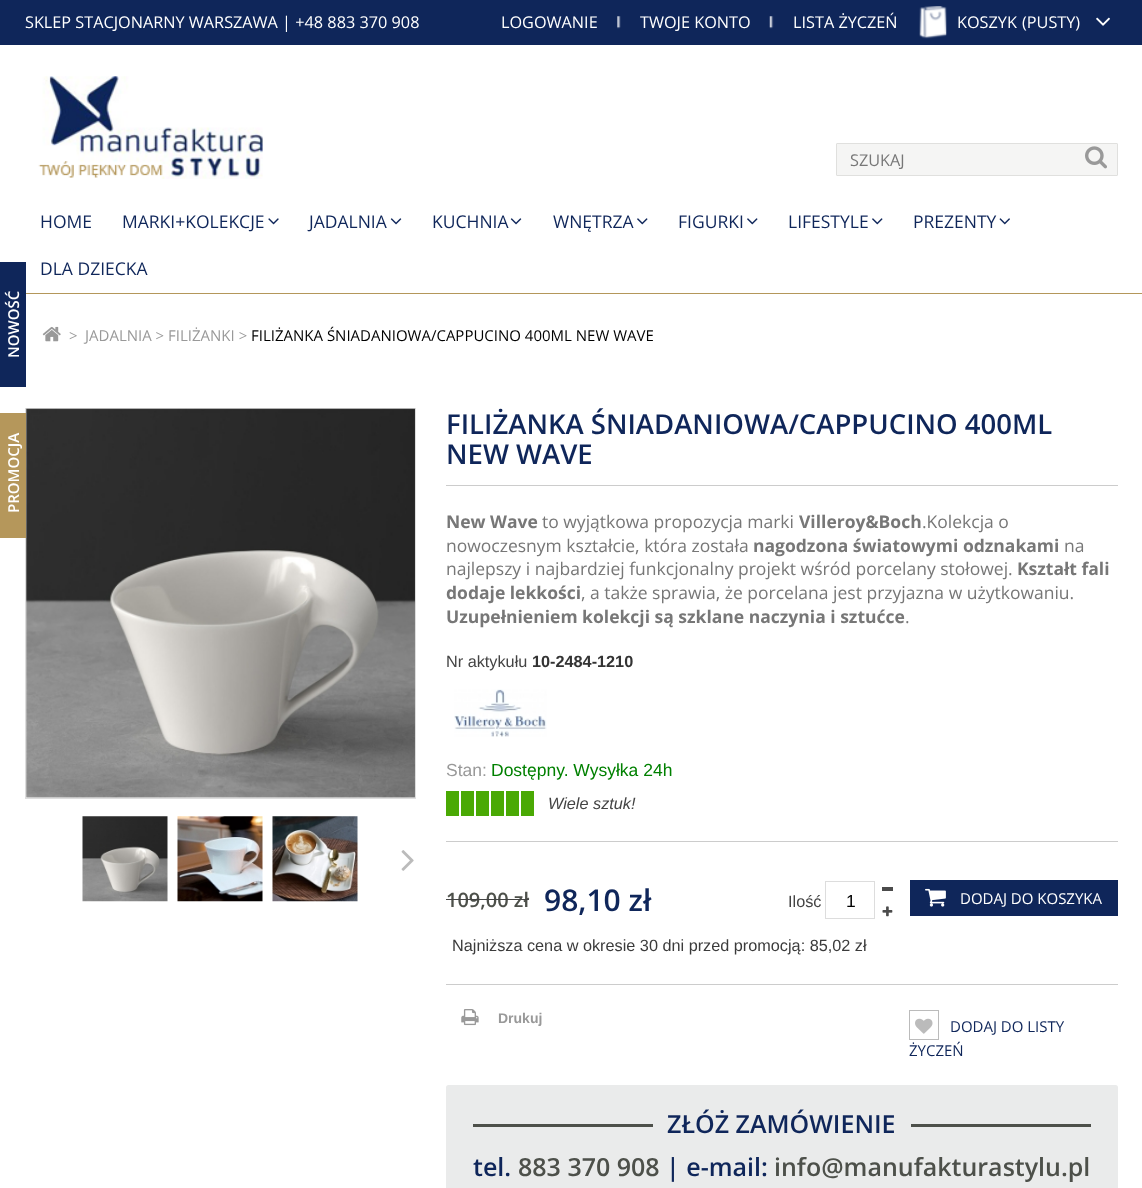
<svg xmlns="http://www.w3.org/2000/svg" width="1142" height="1188">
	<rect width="100%" height="100%" fill="#FFFFFF" />
	<rect x="0" y="262" width="26" height="125" fill="#0F265A" />
	<text x="19" y="358" transform="rotate(-90 19 358)" font-family="Open Sans" font-size="15" font-weight="600" fill="#FFFFFF">NOWOŚĆ</text>
	<rect x="25.5" y="408.5" width="390" height="390" fill="none" stroke="#DDDDDD" />
	<rect x="0" y="413" width="26" height="125" fill="#B5975B" />
	<text x="19" y="513" transform="rotate(-90 19 513)" font-family="Open Sans" font-size="15" font-weight="600" fill="#FFFFFF">PROMOCJA</text>
	<rect x="0" y="0" width="1142" height="45" fill="#0F265A" />
	<g font-family="Open Sans" font-size="16.25" fill="#FFFFFF">
		<text x="25" y="28">SKLEP STACJONARNY WARSZAWA | +48 883 370 908</text>
		<text x="501" y="28">LOGOWANIE</text>
	</g>
	<image x="617" y="16" width="4" height="13" href="assets/img1.png" />
	<text x="640" y="28" font-family="Open Sans" font-size="16.25" fill="#FFFFFF">TWOJE KONTO</text>
	<image x="769" y="16" width="5" height="13" href="assets/img2.png" />
	<text x="793" y="28" font-family="Open Sans" font-size="16.25" fill="#FFFFFF">LISTA ŻYCZEŃ</text>
	<image x="919" y="6" width="28" height="33" href="assets/img3.png" />
	<g font-family="Open Sans" font-size="16.25" fill="#FFFFFF">
		<text x="957" y="28">KOSZYK</text>
		<text x="1022" y="28">(PUSTY)</text>
	</g>
	<image x="1096" y="17" width="14" height="9" href="assets/img4.png" />
	<rect x="26" y="293" width="1116" height="1" fill="#B4975A" />
	<image x="38" y="76" width="225" height="103" href="assets/img5.png" />
	<rect x="836.5" y="143.5" width="281" height="32" rx="0.5" fill="#F5F5F4" stroke="#E0E0DE" />
	<text x="850" y="166" font-family="Open Sans" font-size="16.25" fill="#777777">SZUKAJ</text>
	<image x="1085" y="146" width="22" height="23" href="assets/img6.png" />
	<g font-family="Open Sans" font-size="17.5" fill="#0F265A">
		<text x="40" y="228">HOME</text>
		<text x="122" y="228">MARKI+KOLEKCJE</text>
	</g>
	<image x="268" y="218" width="11" height="7" href="assets/img7.png" />
	<text x="309" y="228" font-family="Open Sans" font-size="17.5" fill="#0F265A">JADALNIA</text>
	<image x="390" y="218" width="12" height="7" href="assets/img8.png" />
	<text x="432" y="228" font-family="Open Sans" font-size="17.5" fill="#0F265A">KUCHNIA</text>
	<image x="510" y="218" width="12" height="7" href="assets/img8.png" />
	<text x="553" y="228" font-family="Open Sans" font-size="17.5" fill="#0F265A">WNĘTRZA</text>
	<image x="637" y="218" width="11" height="7" href="assets/img9.png" />
	<text x="678" y="228" font-family="Open Sans" font-size="17.5" fill="#0F265A">FIGURKI</text>
	<image x="747" y="218" width="11" height="7" href="assets/img9.png" />
	<text x="788" y="228" font-family="Open Sans" font-size="17.5" fill="#0F265A">LIFESTYLE</text>
	<image x="872" y="218" width="11" height="7" href="assets/img9.png" />
	<text x="913" y="228" font-family="Open Sans" font-size="17.5" fill="#0F265A">PREZENTY</text>
	<image x="999" y="218" width="11" height="7" href="assets/img10.png" />
	<text x="40" y="275" font-family="Open Sans" font-size="17.5" fill="#0F265A">DLA DZIECKA</text>
	<image x="42" y="326" width="19" height="16" href="assets/img11.png" />
	<g font-family="Open Sans" font-size="15" fill="#999999">
		<text x="69" y="341">&gt;</text>
		<text x="85" y="341">JADALNIA &gt; FILIŻANKI &gt;</text>
	</g>
	<text x="251" y="341" font-family="Open Sans" font-size="15" fill="#000000">FILIŻANKA ŚNIADANIOWA/CAPPUCINO 400ML NEW WAVE</text>
	<image x="26" y="408" width="389" height="390" href="assets/img12.png" />
	<image x="82" y="816" width="86" height="86" href="assets/img13.png" />
	<image x="177" y="816" width="86" height="86" href="assets/img14.png" />
	<image x="272" y="816" width="86" height="86" href="assets/img15.png" />
	<image x="401" y="850" width="13" height="21" href="assets/img16.png" />
	<rect x="446" y="485" width="672" height="1" fill="#CCCCCC" />
	<g font-family="Open Sans" font-size="27.5" font-weight="600" fill="#0F265A">
		<text x="446" y="434">FILIŻANKA ŚNIADANIOWA/CAPPUCINO 400ML</text>
		<text x="446" y="464">NEW WAVE</text>
	</g>
	<rect x="446" y="841" width="672" height="1" fill="#CCCCCC" />
	<text x="446" y="528" font-family="Open Sans" font-size="17.5" font-weight="700" fill="#777777">New Wave</text>
	<text x="542" y="528" font-family="Open Sans" font-size="17.5" fill="#777777">to wyjątkowa propozycja marki</text>
	<text x="799" y="528" font-family="Open Sans" font-size="17.5" font-weight="700" fill="#777777">Villeroy&amp;Boch</text>
	<g font-family="Open Sans" font-size="17.5" fill="#777777">
		<text x="922" y="528">.Kolekcja o</text>
		<text x="446" y="552">nowoczesnym kształcie, która została</text>
	</g>
	<text x="753" y="552" font-family="Open Sans" font-size="17.5" font-weight="700" fill="#777777">nagodzona światowymi odznakami</text>
	<g font-family="Open Sans" font-size="17.5" fill="#777777">
		<text x="1064" y="552">na</text>
		<text x="446" y="575">najlepszy i najbardziej funkcjonalny projekt wśród porcelany stołowej.</text>
	</g>
	<g font-family="Open Sans" font-size="17.5" font-weight="700" fill="#777777">
		<text x="1017" y="575">Kształt fali</text>
		<text x="446" y="599">dodaje lekkości</text>
	</g>
	<text x="581" y="599" font-family="Open Sans" font-size="17.5" fill="#777777">, a także sprawia, że porcelana jest przyjazna w użytkowaniu.</text>
	<text x="446" y="623" font-family="Open Sans" font-size="17.5" font-weight="700" fill="#777777">Uzupełnieniem kolekcji są szklane naczynia i sztućce</text>
	<text x="905" y="623" font-family="Open Sans" font-size="17.5" fill="#777777">.</text>
	<text x="446" y="667" font-family="Liberation Sans" font-size="16.25" fill="#444444">Nr aktykułu</text>
	<text x="532" y="667" font-family="Liberation Sans" font-size="16.25" font-weight="700" fill="#333333">10-2484-1210</text>
	<image x="454" y="689" width="93" height="48" href="assets/img17.png" />
	<text x="446" y="776" font-family="Liberation Sans" font-size="17.5" fill="#999999">Stan:</text>
	<text x="491" y="776" font-family="Liberation Sans" font-size="17.5" fill="#008000">Dostępny. Wysyłka 24h</text>
	<rect x="446" y="791" width="13" height="25" fill="#4AA904" />
	<rect x="461" y="791" width="13" height="25" fill="#4AA904" />
	<rect x="476" y="791" width="13" height="25" fill="#4AA904" />
	<rect x="491" y="791" width="13" height="25" fill="#4AA904" />
	<rect x="506" y="791" width="13" height="25" fill="#4AA904" />
	<rect x="521" y="791" width="13" height="25" fill="#4AA904" />
	<text x="548" y="809" font-family="Liberation Sans" font-size="16.25" font-style="italic" fill="#444444">Wiele sztuk!</text>
	<rect x="446" y="984" width="672" height="1" fill="#CCCCCC" />
	<text x="446" y="907" font-family="Open Sans" font-size="20" font-weight="600" fill="#4D504A">109,00 zł</text>
	<rect x="446" y="899" width="83" height="1" fill="#444444" />
	<text x="544" y="911" font-family="Open Sans" font-size="30" font-weight="600" fill="#0F265A">98,10 zł</text>
	<rect x="882" y="887" width="11" height="4" fill="#4B4B4B" />
	<text x="788" y="907" font-family="Liberation Sans" font-size="16.25" fill="#444444">Ilość</text>
	<rect x="825.5" y="881.5" width="49" height="37" fill="none" stroke="#DDDDDD" />
	<text x="846" y="907" font-family="Liberation Sans" font-size="17.5" fill="#000000">1</text>
	<image x="882" y="906" width="11" height="11" href="assets/img18.png" />
	<rect x="910" y="880" width="208" height="36" fill="#0F265A" />
	<image x="925" y="888" width="21" height="19" href="assets/img19.png" />
	<text x="960" y="904" font-family="Open Sans" font-size="15" fill="#FFFFFF">DODAJ DO KOSZYKA</text>
	<text x="452" y="951" font-family="Liberation Sans" font-size="16.25" fill="#3B3B3B">Najniższa cena w okresie 30 dni przed promocją: 85,02 zł</text>
	<image x="461" y="1009" width="18" height="17" href="assets/img20.png" />
	<text x="498" y="1023" font-family="Liberation Sans" font-size="14" font-weight="700" fill="#999999">Drukuj</text>
	<rect x="909.5" y="1010.5" width="29" height="29" fill="none" stroke="#BBBBBB" />
	<image x="915" y="1018" width="18" height="16" href="assets/img21.png" />
	<g font-family="Open Sans" font-size="15" fill="#0F265A">
		<text x="950" y="1032">DODAJ DO LISTY</text>
		<text x="909" y="1056">ŻYCZEŃ</text>
	</g>
	<rect x="446" y="1085" width="672" height="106" rx="2.5" fill="#EAEBEB" />
	<rect x="473" y="1124" width="618" height="3" fill="#4D504A" />
	<rect x="653" y="1124" width="258" height="3" fill="#EAEBEB" />
	<g font-family="Open Sans" font-size="25" font-weight="600" fill="#0F265A">
		<text x="667" y="1133">ZŁÓŻ ZAMÓWIENIE</text>
		<text x="473" y="1176">tel.</text>
	</g>
	<text x="518" y="1176" font-family="Open Sans" font-size="25" font-weight="600" fill="#4D504A">883 370 908</text>
	<text x="666" y="1176" font-family="Open Sans" font-size="25" font-weight="600" fill="#0F265A">| e-mail:</text>
	<text x="774" y="1176" font-family="Open Sans" font-size="25" font-weight="600" fill="#4D504A">info@manufakturastylu.pl</text>
</svg>
